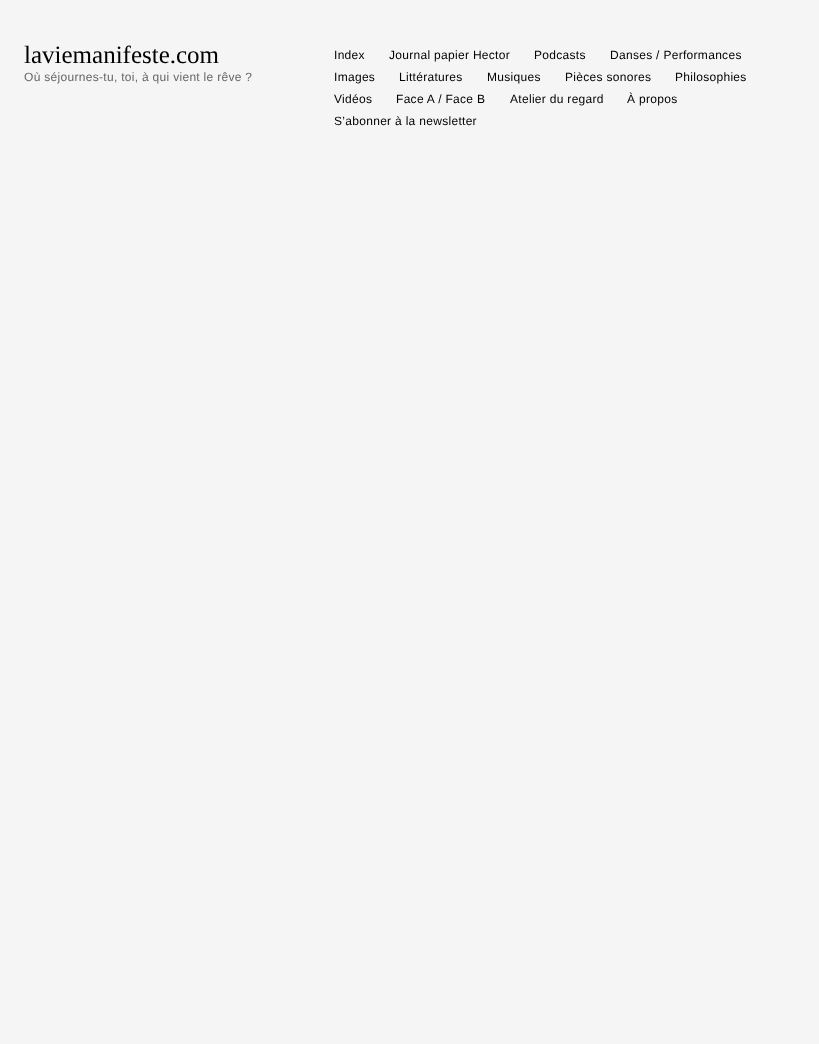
<svg xmlns="http://www.w3.org/2000/svg" width="819" height="1044">
	<rect width="100%" height="100%" fill="#F5F5F5" />
	<text x="24" y="63" font-family="Liberation Serif" font-size="25" fill="#000000">laviemanifeste.com</text>
	<text x="24" y="81" font-family="Liberation Sans" font-size="12" letter-spacing="0.3" fill="#666666">Où séjournes-tu, toi, à qui vient le rêve ?</text>
	<g font-family="Liberation Sans" font-size="12" letter-spacing="0.3" fill="#000000">
		<text x="334" y="59">Index</text>
		<text x="389" y="59">Journal papier Hector</text>
		<text x="534" y="59">Podcasts</text>
		<text x="610" y="59">Danses / Performances</text>
		<text x="334" y="81">Images</text>
		<text x="399" y="81">Littératures</text>
		<text x="487" y="81">Musiques</text>
		<text x="565" y="81">Pièces sonores</text>
		<text x="675" y="81">Philosophies</text>
		<text x="334" y="103">Vidéos</text>
		<text x="396" y="103">Face A / Face B</text>
		<text x="510" y="103">Atelier du regard</text>
		<text x="627" y="103">À propos</text>
		<text x="334" y="125">S’abonner à la newsletter</text>
	</g>
</svg>
